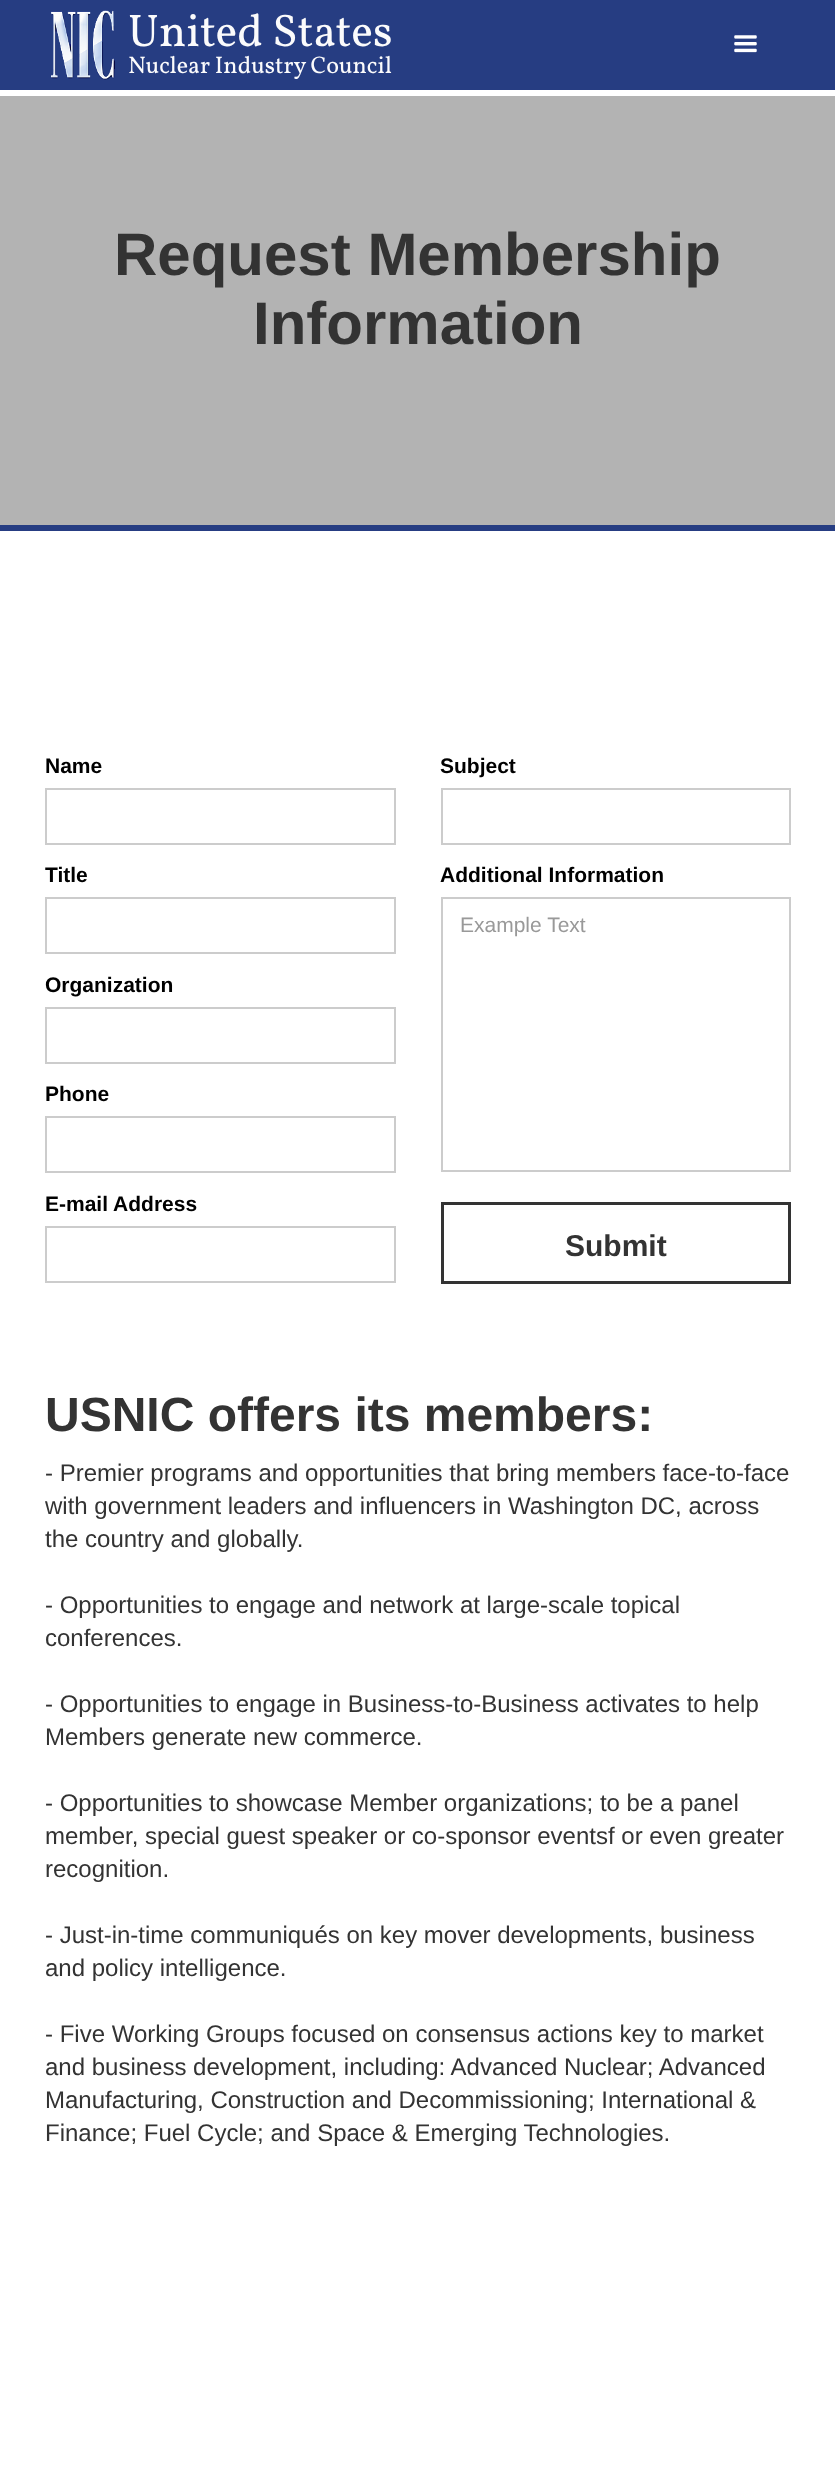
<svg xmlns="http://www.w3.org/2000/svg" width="835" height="2486">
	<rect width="100%" height="100%" fill="#FFFFFF" />
	<rect x="0" y="0" width="835" height="90" fill="#263D82" />
	<image x="51" y="10" width="64" height="70" href="assets/img1.png" />
	<text x="128" y="46" font-family="Vollkorn" font-size="45.75" fill="#FBFBFC">United States</text>
	<text x="128" y="73" font-family="Vollkorn" font-size="24" fill="#FBFBFC">Nuclear Industry Council</text>
	<image x="734" y="35" width="23" height="18" href="assets/img2.png" />
	<rect x="0" y="96" width="835" height="429" fill="#B3B3B3" />
	<g font-family="Liberation Sans" font-size="60" font-weight="700" fill="#333333">
		<text x="114" y="275">Request Membership</text>
		<text x="253" y="344">Information</text>
	</g>
	<rect x="0" y="525" width="835" height="6" fill="#263D82" />
	<text x="45" y="773" font-family="Liberation Sans" font-size="21" font-weight="700" fill="#000000">Name</text>
	<rect x="46" y="789" width="349" height="55" fill="none" stroke="#CCCCCC" stroke-width="2" />
	<text x="45" y="882" font-family="Liberation Sans" font-size="21" font-weight="700" fill="#000000">Title</text>
	<rect x="46" y="898" width="349" height="55" fill="none" stroke="#CCCCCC" stroke-width="2" />
	<text x="45" y="992" font-family="Liberation Sans" font-size="21" font-weight="700" fill="#000000">Organization</text>
	<rect x="46" y="1008" width="349" height="55" fill="none" stroke="#CCCCCC" stroke-width="2" />
	<text x="45" y="1101" font-family="Liberation Sans" font-size="21" font-weight="700" fill="#000000">Phone</text>
	<rect x="46" y="1117" width="349" height="55" fill="none" stroke="#CCCCCC" stroke-width="2" />
	<text x="45" y="1211" font-family="Liberation Sans" font-size="21" font-weight="700" fill="#000000">E-mail Address</text>
	<rect x="46" y="1227" width="349" height="55" fill="none" stroke="#CCCCCC" stroke-width="2" />
	<text x="440" y="773" font-family="Liberation Sans" font-size="21" font-weight="700" fill="#000000">Subject</text>
	<rect x="442" y="789" width="348" height="55" fill="none" stroke="#CCCCCC" stroke-width="2" />
	<text x="440" y="882" font-family="Liberation Sans" font-size="21" font-weight="700" fill="#000000">Additional Information</text>
	<rect x="442" y="898" width="348" height="273" fill="none" stroke="#CCCCCC" stroke-width="2" />
	<text x="460" y="932" font-family="Liberation Sans" font-size="21" fill="#999999">Example Text</text>
	<rect x="442.5" y="1203.5" width="347" height="79" fill="none" stroke="#333333" stroke-width="3" />
	<text x="565" y="1256" font-family="Liberation Sans" font-size="30" font-weight="700" fill="#333333">Submit</text>
	<text x="45" y="1431" font-family="Liberation Sans" font-size="48" font-weight="700" fill="#333333">USNIC offers its members:</text>
	<g font-family="Liberation Sans" font-size="24" fill="#333333">
		<text x="45" y="1481">- Premier programs and opportunities that bring members face-to-face</text>
		<text x="45" y="1514">with government leaders and influencers in Washington DC, across</text>
		<text x="45" y="1547">the country and globally.</text>
		<text x="45" y="1613">- Opportunities to engage and network at large-scale topical</text>
		<text x="45" y="1646">conferences.</text>
		<text x="45" y="1712">- Opportunities to engage in Business-to-Business activates to help</text>
		<text x="45" y="1745">Members generate new commerce.</text>
		<text x="45" y="1811">- Opportunities to showcase Member organizations; to be a panel</text>
		<text x="45" y="1844">member, special guest speaker or co-sponsor eventsf or even greater</text>
		<text x="45" y="1877">recognition.</text>
		<text x="45" y="1943">- Just-in-time communiqués on key mover developments, business</text>
		<text x="45" y="1976">and policy intelligence.</text>
		<text x="45" y="2042">- Five Working Groups focused on consensus actions key to market</text>
		<text x="45" y="2075">and business development, including: Advanced Nuclear; Advanced</text>
		<text x="45" y="2108">Manufacturing, Construction and Decommissioning; International &amp;</text>
		<text x="45" y="2141">Finance; Fuel Cycle; and Space &amp; Emerging Technologies.</text>
	</g>
</svg>
